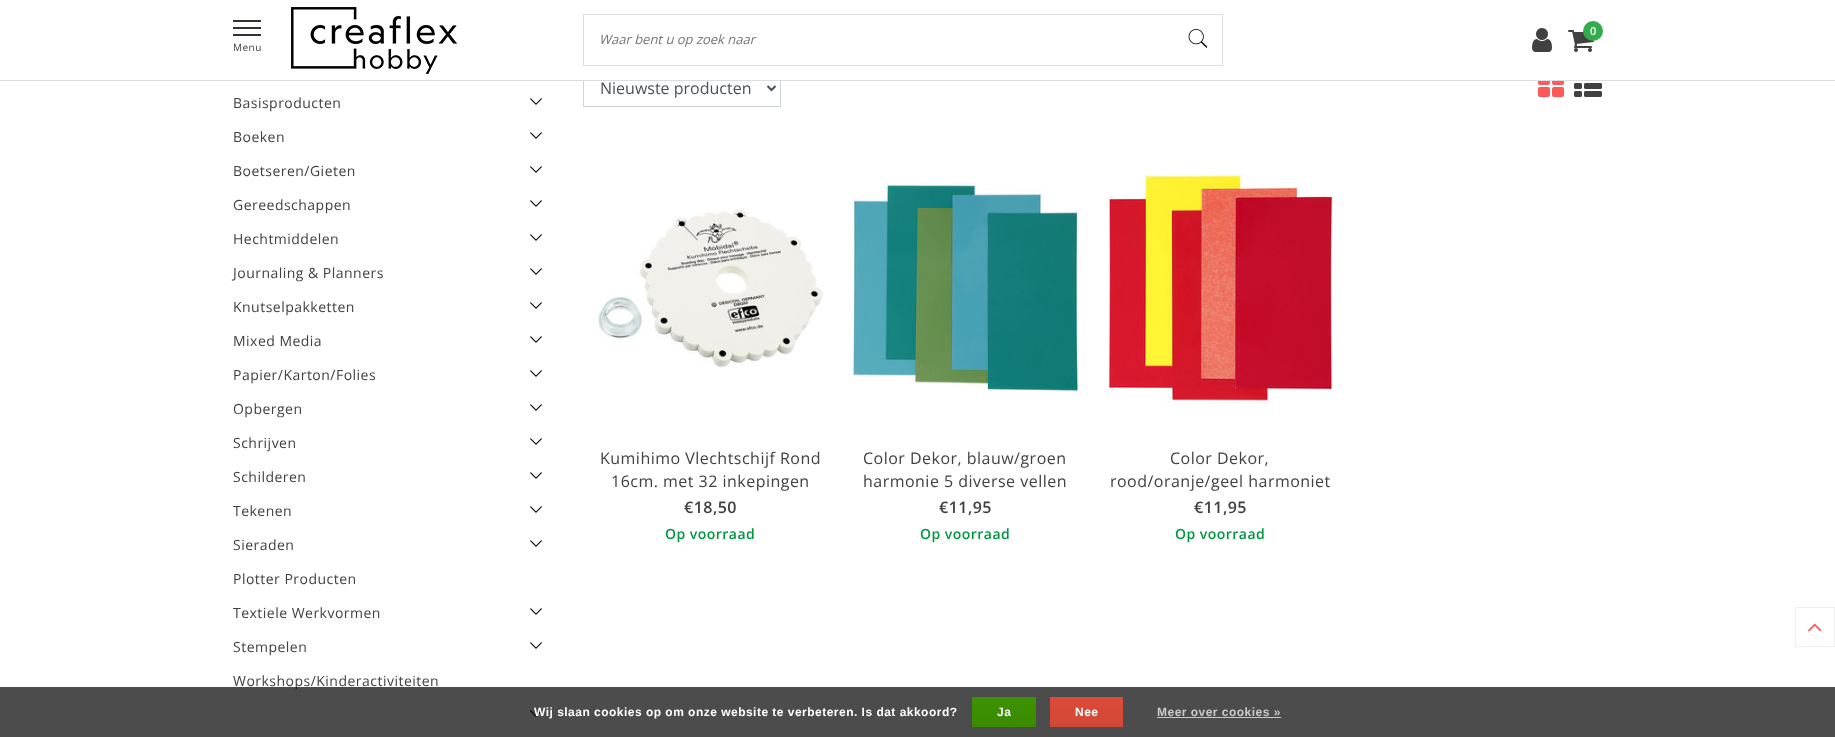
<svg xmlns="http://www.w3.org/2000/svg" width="1835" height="737">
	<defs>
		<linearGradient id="g1" gradientUnits="userSpaceOnUse" x1="1004" y1="697" x2="1004" y2="727"><stop offset="0" stop-color="#3C9300" /><stop offset="1" stop-color="#398A00" /></linearGradient>
		<linearGradient id="g2" gradientUnits="userSpaceOnUse" x1="1087" y1="697" x2="1087" y2="727"><stop offset="0" stop-color="#DC4A38" /><stop offset="1" stop-color="#D14836" /></linearGradient>
	</defs>
	<rect width="100%" height="100%" fill="#FFFFFF" />
	<rect x="583.5" y="69.5" width="197" height="37" fill="none" stroke="#CED4DA" />
	<rect x="583" y="69" width="198" height="11" fill="#FFFFFF" />
	<rect x="0" y="80" width="1835" height="1" fill="#DDDDDD" />
	<image x="1532" y="28" width="20" height="24" href="assets/img1.png" />
	<image x="1568" y="30" width="26" height="22" href="assets/img2.png" />
	<circle cx="1593" cy="31" r="10" fill="#33AD4B" />
	<text x="1590" y="35" font-family="Open Sans" font-size="11" font-weight="600" letter-spacing="0.48" fill="#FFFFFF">0</text>
	<rect x="233" y="20" width="28" height="2" fill="#34312F" />
	<rect x="233" y="27" width="28" height="2" fill="#34312F" />
	<rect x="233" y="34" width="28" height="2" fill="#34312F" />
	<text x="233" y="51" font-family="Open Sans" font-size="10" letter-spacing="0.48" fill="#414141">Menu</text>
	<image x="291" y="7" width="166" height="67" href="assets/img3.png" />
	<rect x="583.5" y="14.5" width="639" height="51" fill="none" stroke="#DDDDDD" />
	<text x="599" y="44" font-family="Open Sans" font-size="13" font-style="italic" fill="#757575">Waar bent u op zoek naar</text>
	<image x="1188" y="29" width="20" height="19" href="assets/img4.png" />
	<text x="233" y="108" font-family="Open Sans" font-size="14" letter-spacing="0.48" fill="#414141">Basisproducten</text>
	<image x="530" y="98" width="12" height="7" href="assets/img5.png" />
	<text x="233" y="142" font-family="Open Sans" font-size="14" letter-spacing="0.48" fill="#414141">Boeken</text>
	<image x="530" y="132" width="12" height="7" href="assets/img5.png" />
	<text x="233" y="176" font-family="Open Sans" font-size="14" letter-spacing="0.48" fill="#414141">Boetseren/Gieten</text>
	<image x="530" y="166" width="12" height="7" href="assets/img5.png" />
	<text x="233" y="210" font-family="Open Sans" font-size="14" letter-spacing="0.48" fill="#414141">Gereedschappen</text>
	<image x="530" y="200" width="12" height="7" href="assets/img5.png" />
	<text x="233" y="244" font-family="Open Sans" font-size="14" letter-spacing="0.48" fill="#414141">Hechtmiddelen</text>
	<image x="530" y="234" width="12" height="7" href="assets/img5.png" />
	<text x="233" y="278" font-family="Open Sans" font-size="14" letter-spacing="0.48" fill="#414141">Journaling &amp; Planners</text>
	<image x="530" y="268" width="12" height="7" href="assets/img5.png" />
	<text x="233" y="312" font-family="Open Sans" font-size="14" letter-spacing="0.48" fill="#414141">Knutselpakketten</text>
	<image x="530" y="302" width="12" height="7" href="assets/img5.png" />
	<text x="233" y="346" font-family="Open Sans" font-size="14" letter-spacing="0.48" fill="#414141">Mixed Media</text>
	<image x="530" y="336" width="12" height="7" href="assets/img5.png" />
	<text x="233" y="380" font-family="Open Sans" font-size="14" letter-spacing="0.48" fill="#414141">Papier/Karton/Folies</text>
	<image x="530" y="370" width="12" height="7" href="assets/img5.png" />
	<text x="233" y="414" font-family="Open Sans" font-size="14" letter-spacing="0.48" fill="#414141">Opbergen</text>
	<image x="530" y="404" width="12" height="7" href="assets/img5.png" />
	<text x="233" y="448" font-family="Open Sans" font-size="14" letter-spacing="0.48" fill="#414141">Schrijven</text>
	<image x="530" y="438" width="12" height="7" href="assets/img5.png" />
	<text x="233" y="482" font-family="Open Sans" font-size="14" letter-spacing="0.48" fill="#414141">Schilderen</text>
	<image x="530" y="472" width="12" height="7" href="assets/img5.png" />
	<text x="233" y="516" font-family="Open Sans" font-size="14" letter-spacing="0.48" fill="#414141">Tekenen</text>
	<image x="530" y="506" width="12" height="7" href="assets/img5.png" />
	<text x="233" y="550" font-family="Open Sans" font-size="14" letter-spacing="0.48" fill="#414141">Sieraden</text>
	<image x="530" y="540" width="12" height="7" href="assets/img5.png" />
	<g font-family="Open Sans" font-size="14" letter-spacing="0.48" fill="#414141">
		<text x="233" y="584">Plotter Producten</text>
		<text x="233" y="618">Textiele Werkvormen</text>
	</g>
	<image x="530" y="608" width="12" height="7" href="assets/img5.png" />
	<text x="233" y="652" font-family="Open Sans" font-size="14" letter-spacing="0.48" fill="#414141">Stempelen</text>
	<image x="530" y="642" width="12" height="7" href="assets/img5.png" />
	<text x="233" y="686" font-family="Open Sans" font-size="14" letter-spacing="0.48" fill="#414141">Workshops/Kinderactiviteiten</text>
	<image x="530" y="710" width="12" height="7" href="assets/img5.png" />
	<path d="M767.5 86L771.5 90L775.5 86" fill="none" stroke="#495057" stroke-width="2" />
	<text x="600" y="94" font-family="Open Sans" font-size="16" fill="#495057">Nieuwste producten</text>
	<image x="1538" y="81" width="26" height="16" href="assets/img6.png" />
	<image x="1574" y="83" width="28" height="14" href="assets/img7.png" />
	<image x="598" y="209" width="225" height="160" href="assets/img8.png" />
	<g font-family="Open Sans" font-size="16" letter-spacing="0.48" fill="#414141">
		<text x="600" y="464">Kumihimo Vlechtschijf Rond</text>
		<text x="611" y="487">16cm. met 32 inkepingen</text>
	</g>
	<text x="684" y="513" font-family="Open Sans" font-size="16" font-weight="600" letter-spacing="0.48" fill="#414141">€18,50</text>
	<text x="665" y="539" font-family="Open Sans" font-size="14" font-weight="600" letter-spacing="0.48" fill="#00963F">Op voorraad</text>
	<image x="853" y="182" width="225" height="209" href="assets/img9.png" />
	<g font-family="Open Sans" font-size="16" letter-spacing="0.48" fill="#414141">
		<text x="863" y="464">Color Dekor, blauw/groen</text>
		<text x="863" y="487">harmonie 5 diverse vellen</text>
	</g>
	<text x="939" y="513" font-family="Open Sans" font-size="16" font-weight="600" letter-spacing="0.48" fill="#414141">€11,95</text>
	<text x="920" y="539" font-family="Open Sans" font-size="14" font-weight="600" letter-spacing="0.48" fill="#00963F">Op voorraad</text>
	<image x="1108" y="174" width="225" height="231" href="assets/img10.png" />
	<g font-family="Open Sans" font-size="16" letter-spacing="0.48" fill="#414141">
		<text x="1170" y="464">Color Dekor,</text>
		<text x="1110" y="487">rood/oranje/geel harmoniet</text>
	</g>
	<text x="1194" y="513" font-family="Open Sans" font-size="16" font-weight="600" letter-spacing="0.48" fill="#414141">€11,95</text>
	<text x="1175" y="539" font-family="Open Sans" font-size="14" font-weight="600" letter-spacing="0.48" fill="#00963F">Op voorraad</text>
	<rect x="1795.5" y="607.5" width="39" height="39" fill="none" stroke="#EEEEEE" />
	<image x="1808" y="623" width="14" height="9" href="assets/img11.png" />
	<rect x="0" y="687" width="1835" height="50" fill="#000000" fill-opacity="0.7" />
	<text x="534" y="716" font-family="Liberation Sans" font-size="12" font-weight="700" letter-spacing="0.48" fill="#FFFFFF">Wij slaan cookies op om onze website te verbeteren. Is dat akkoord?</text>
	<rect x="972" y="697" width="64" height="30" fill="url(#g1)" />
	<text x="997" y="716" font-family="Liberation Sans" font-size="12" font-weight="700" letter-spacing="0.48" fill="#FFFFFF">Ja</text>
	<rect x="1050" y="697" width="73" height="30" fill="url(#g2)" />
	<text x="1075" y="716" font-family="Liberation Sans" font-size="12" font-weight="700" letter-spacing="0.48" fill="#FFFFFF">Nee</text>
	<text x="1157" y="716" font-family="Liberation Sans" font-size="12" font-weight="700" letter-spacing="0.48" fill="#C9C9C9">Meer over cookies »</text>
	<rect x="1157" y="717" width="124" height="1" fill="#C9C9C9" />
</svg>
